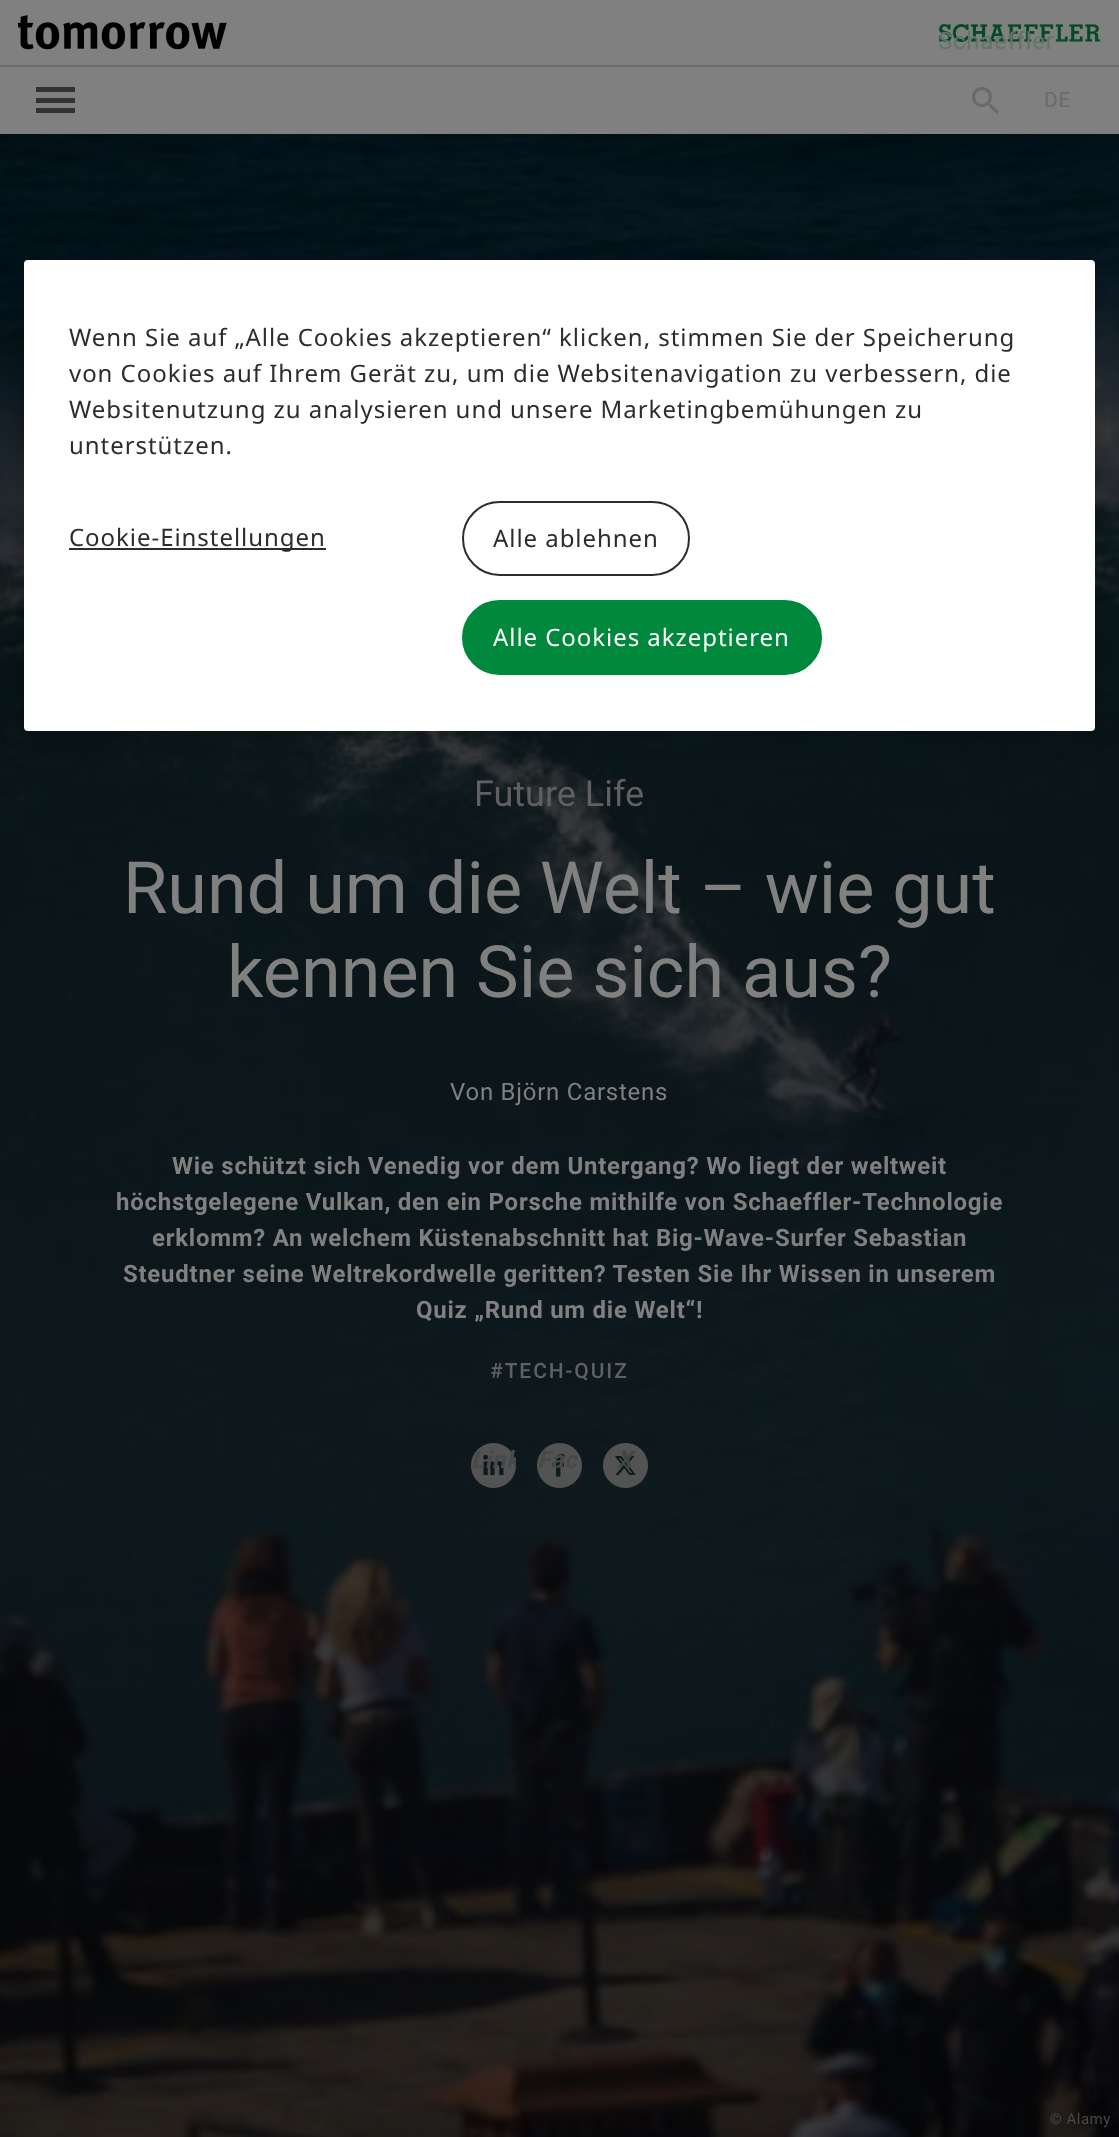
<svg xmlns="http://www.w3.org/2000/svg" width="1119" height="2137">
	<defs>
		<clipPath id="clip1"><rect x="471" y="1443" width="45" height="45" /></clipPath>
	</defs>
	<rect width="100%" height="100%" fill="#FFFFFF" />
	<rect x="0" y="0" width="1119" height="134" fill="#808080" />
	<rect x="0" y="65" width="1119" height="2" fill="#676B6D" />
	<image x="18" y="15" width="209" height="35" href="assets/img1.png" />
	<image x="939" y="24" width="161" height="18" href="assets/img2.png" />
	<text x="938" y="49" font-family="Roboto" font-size="24" letter-spacing="0.75" fill="#63746B">Schaeffler</text>
	<rect x="36" y="98" width="39" height="5" fill="#323232" />
	<rect x="36" y="87" width="39" height="5" fill="#323232" />
	<rect x="36" y="108" width="39" height="5" fill="#323232" />
	<image x="972" y="87" width="27" height="27" href="assets/img3.png" />
	<text x="1044" y="107" font-family="Roboto" font-size="21" letter-spacing="0.75" fill="#676B6D">DE</text>
	<image x="0" y="134" width="1119" height="2003" href="assets/img4.png" />
	<rect x="24" y="260" width="1071" height="471" rx="4" fill="#000000" fill-opacity="0.2" filter="blur(13.5px)" />
	<rect x="24" y="260" width="1071" height="471" rx="4" fill="#FFFFFF" />
	<g font-family="Noto Sans" font-size="24" letter-spacing="0.95" fill="#2C2C2C">
		<text x="69" y="346">Wenn Sie auf „Alle Cookies akzeptieren“ klicken, stimmen Sie der Speicherung</text>
		<text x="69" y="382">von Cookies auf Ihrem Gerät zu, um die Websitenavigation zu verbessern, die</text>
		<text x="69" y="418">Websitenutzung zu analysieren und unsere Marketingbemühungen zu</text>
		<text x="69" y="454">unterstützen.</text>
	</g>
	<rect x="69" y="548" width="257" height="2" fill="#2C2C2C" />
	<text x="69" y="546" font-family="Noto Sans" font-size="24" letter-spacing="0.95" fill="#2C2C2C">Cookie-Einstellungen</text>
	<rect x="463" y="502" width="226" height="73" rx="36.5" fill="none" stroke="#2C2C2C" stroke-width="2" />
	<text x="493" y="547" font-family="Noto Sans" font-size="24" letter-spacing="0.95" fill="#2C2C2C">Alle ablehnen</text>
	<rect x="463" y="601" width="358" height="73" rx="36.5" fill="#00893D" stroke="#00893D" stroke-width="2" />
	<text x="493" y="646" font-family="Noto Sans" font-size="24" letter-spacing="0.95" fill="#FFFFFF">Alle Cookies akzeptieren</text>
	<text x="474" y="806" font-family="Roboto" font-size="36" fill="#606060">Future Life</text>
	<g font-family="Roboto" font-size="72" fill="#808080">
		<text x="123" y="913">Rund um die Welt – wie gut</text>
		<text x="227" y="997">kennen Sie sich aus?</text>
	</g>
	<text x="450" y="1100" font-family="Roboto" font-size="24" letter-spacing="0.75" fill="#808080">Von Björn Carstens</text>
	<g font-family="Roboto" font-size="24" font-weight="700" letter-spacing="0.75" fill="#808080">
		<text x="172" y="1174">Wie schützt sich Venedig vor dem Untergang? Wo liegt der weltweit</text>
		<text x="116" y="1210">höchstgelegene Vulkan, den ein Porsche mithilfe von Schaeffler-Technologie</text>
		<text x="152" y="1246">erklomm? An welchem Küstenabschnitt hat Big-Wave-Surfer Sebastian</text>
		<text x="123" y="1282">Steudtner seine Weltrekordwelle geritten? Testen Sie Ihr Wissen in unserem</text>
		<text x="416" y="1318">Quiz „Rund um die Welt“!</text>
	</g>
	<text x="490" y="1378" font-family="Roboto" font-size="21" font-weight="500" letter-spacing="1.9" fill="#606060">#TECH-QUIZ</text>
	<image x="471" y="1443" width="45" height="45" href="assets/img5.png" />
	<g clip-path="url(#clip1)">
		<text x="471" y="1468" font-family="Roboto" font-size="24" font-weight="700" font-style="italic" letter-spacing="0.75" fill="#48494A">Link</text>
	</g>
	<image x="537" y="1443" width="45" height="45" href="assets/img6.png" />
	<text x="537" y="1468" font-family="Roboto" font-size="24" font-weight="700" font-style="italic" letter-spacing="0.75" fill="#48494A">Fac</text>
	<image x="603" y="1443" width="45" height="45" href="assets/img7.png" />
	<text x="617" y="1468" font-family="Roboto" font-size="24" font-weight="700" font-style="italic" letter-spacing="0.75" fill="#424546">X</text>
	<text x="1050" y="2124" font-family="Roboto" font-size="15" letter-spacing="0.5" fill="#48494A">© Alamy</text>
</svg>
